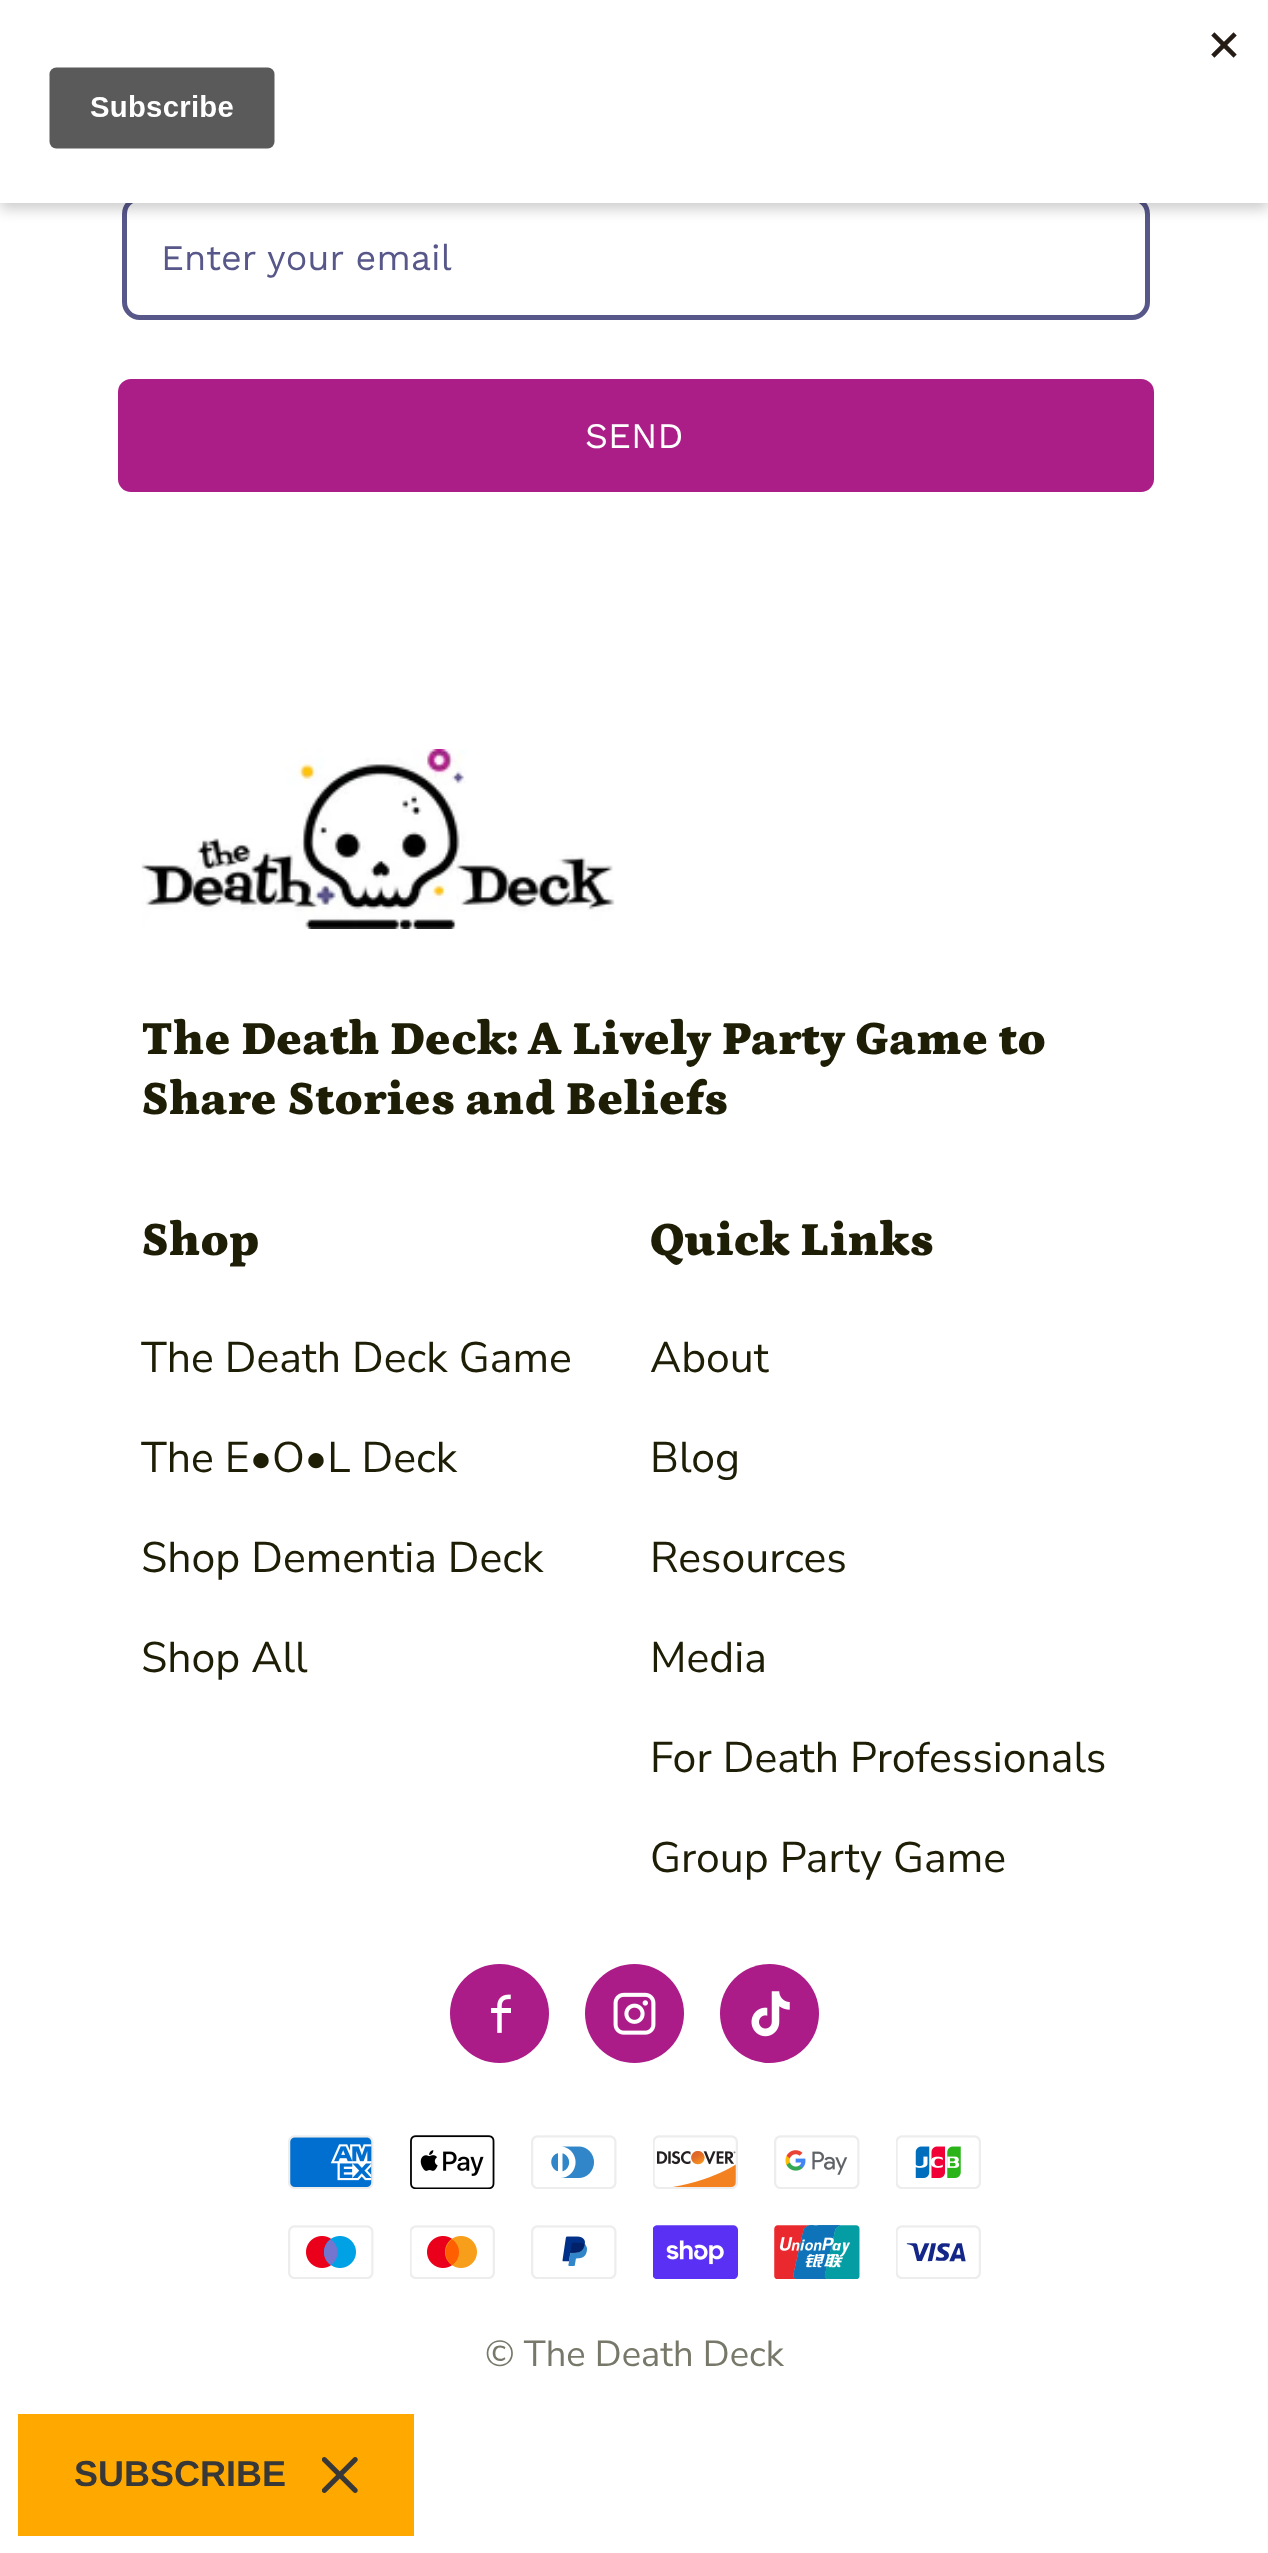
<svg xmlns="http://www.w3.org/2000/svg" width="1268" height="2553">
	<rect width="100%" height="100%" fill="#FFFFFF" />
	<rect x="124.5" y="198.5" width="1023" height="119" rx="15.5" fill="none" stroke="#57578A" stroke-width="5" />
	<rect x="0" y="7" width="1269" height="202" fill="#000000" fill-opacity="0.2" filter="blur(7px)" />
	<rect x="0" y="0" width="1268" height="203" fill="#FFFFFF" />
	<image x="49" y="32" width="1188" height="117" href="assets/img1.png" />
	<text x="161" y="270" font-family="Work Sans" font-size="36" fill="#57578A">Enter your email</text>
	<rect x="115.5" y="376.5" width="1041" height="118" rx="15.5" fill="#AB1D87" stroke="#FFFFFF" stroke-width="5" />
	<text x="585" y="448" font-family="Work Sans" font-size="36" fill="#FFFFFF">SEND</text>
	<image x="141" y="749" width="474" height="180" href="assets/img2.png" />
	<g font-family="Petrona" font-size="48.1" font-weight="900" fill="#1E1E06">
		<text x="141" y="1054">The Death Deck: A Lively Party Game to</text>
		<text x="141" y="1114">Share Stories and Beliefs</text>
		<text x="141" y="1255">Shop</text>
	</g>
	<g font-family="Nunito Sans" font-size="42.75" fill="#1E1E06">
		<text x="141" y="1372">The Death Deck Game</text>
		<text x="141" y="1472">The E•O•L Deck</text>
		<text x="141" y="1572">Shop Dementia Deck</text>
		<text x="141" y="1672">Shop All</text>
	</g>
	<text x="650" y="1255" font-family="Petrona" font-size="48.1" font-weight="900" fill="#1E1E06">Quick Links</text>
	<g font-family="Nunito Sans" font-size="42.75" fill="#1E1E06">
		<text x="650" y="1372">About</text>
		<text x="650" y="1472">Blog</text>
		<text x="650" y="1572">Resources</text>
		<text x="650" y="1672">Media</text>
		<text x="650" y="1772">For Death Professionals</text>
		<text x="650" y="1872">Group Party Game</text>
	</g>
	<circle cx="499.5" cy="2013.5" r="49.5" fill="#AB1C88" />
	<image x="491" y="1994" width="20" height="39" href="assets/img3.png" />
	<circle cx="634.5" cy="2013.5" r="49.5" fill="#AB1C88" />
	<image x="613" y="1992" width="43" height="43" href="assets/img4.png" />
	<circle cx="769.5" cy="2013.5" r="49.5" fill="#AB1C88" />
	<image x="751" y="1991" width="39" height="46" href="assets/img5.png" />
	<image x="288" y="2135" width="86" height="54" href="assets/img6.png" />
	<image x="410" y="2135" width="85" height="54" href="assets/img7.png" />
	<image x="531" y="2135" width="86" height="54" href="assets/img8.png" />
	<image x="653" y="2135" width="85" height="54" href="assets/img9.png" />
	<image x="774" y="2135" width="86" height="54" href="assets/img10.png" />
	<image x="896" y="2135" width="85" height="54" href="assets/img11.png" />
	<image x="288" y="2225" width="86" height="54" href="assets/img12.png" />
	<image x="410" y="2225" width="85" height="54" href="assets/img13.png" />
	<image x="531" y="2225" width="86" height="54" href="assets/img14.png" />
	<image x="653" y="2225" width="85" height="54" href="assets/img15.png" />
	<image x="774" y="2225" width="86" height="54" href="assets/img16.png" />
	<image x="896" y="2225" width="85" height="54" href="assets/img17.png" />
	<text x="485" y="2366" font-family="Nunito Sans" font-size="36.25" fill="#78786A">© The Death Deck</text>
	<rect x="18" y="2414" width="396" height="122" fill="#FFA800" />
	<text x="74" y="2486" font-family="Liberation Sans" font-size="36" font-weight="700" fill="#383838">SUBSCRIBE</text>
	<image x="322" y="2457" width="36" height="36" href="assets/img18.png" />
</svg>
